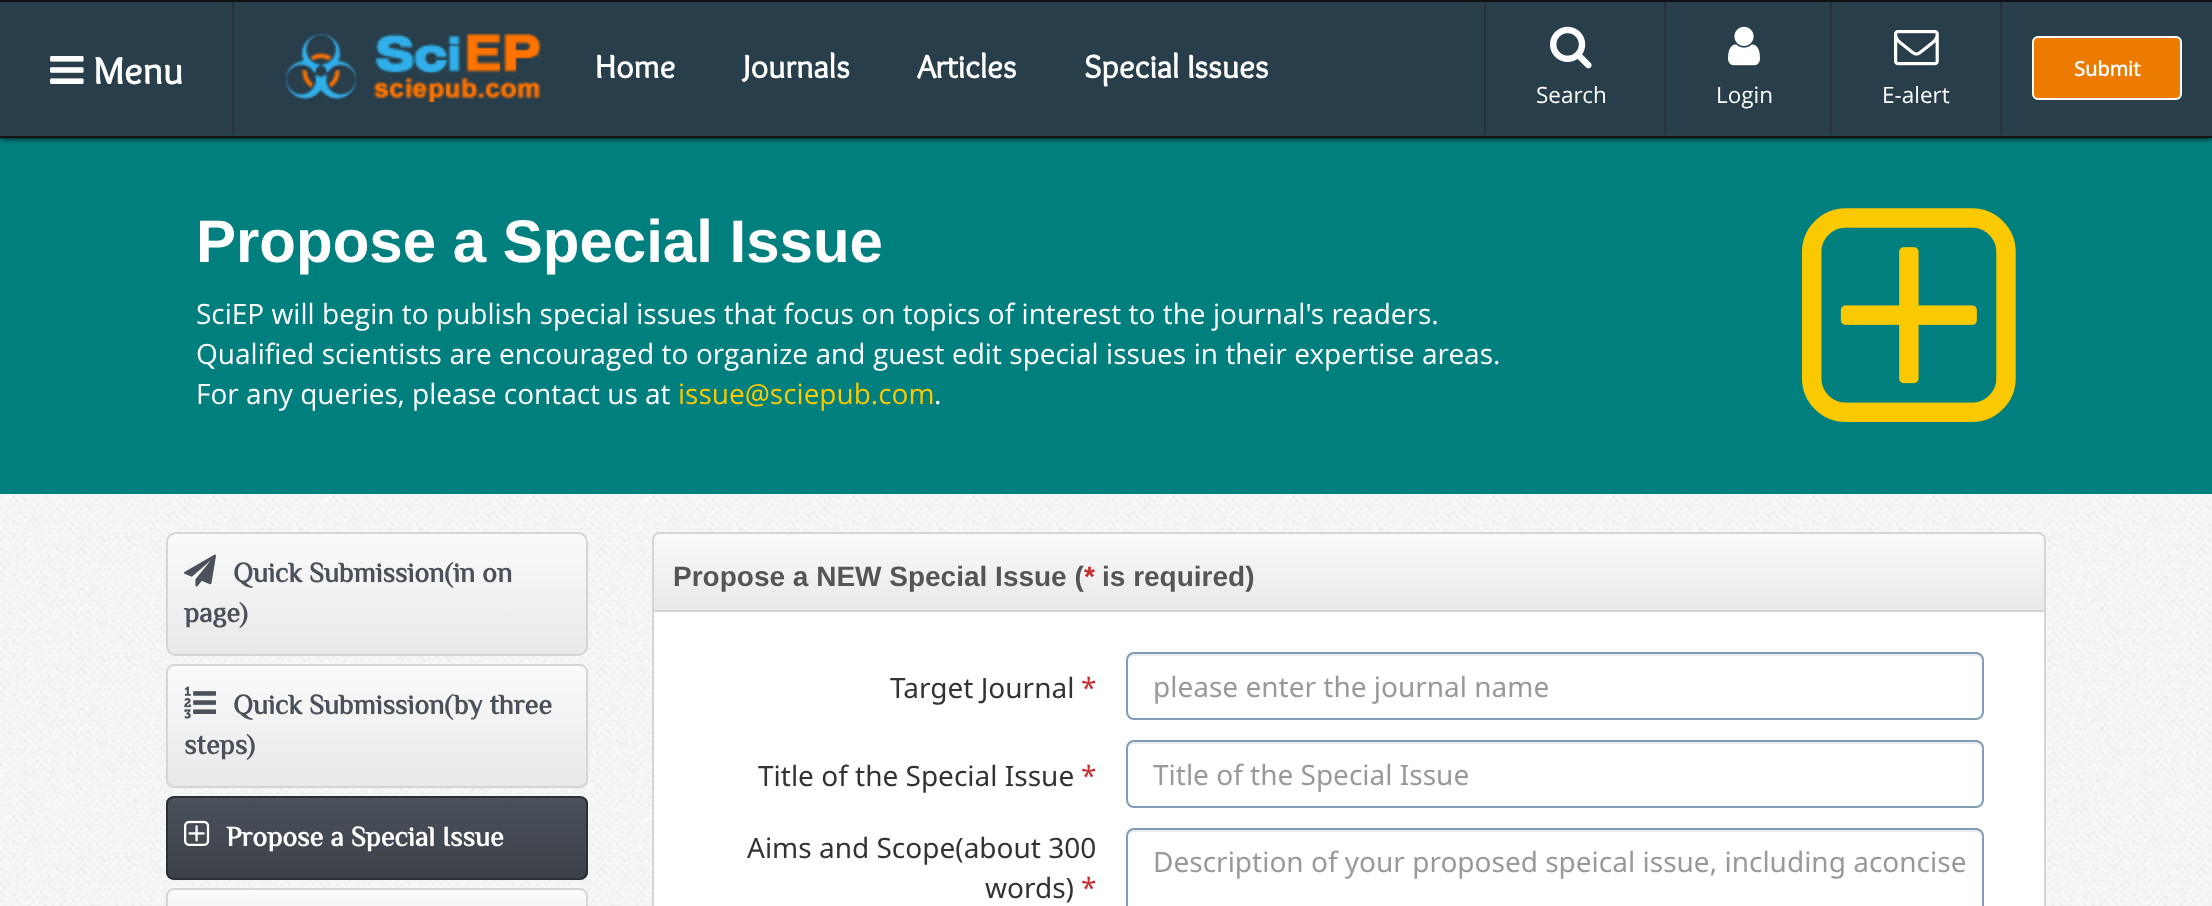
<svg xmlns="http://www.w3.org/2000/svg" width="2212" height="906">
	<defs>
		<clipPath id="clip1"><rect x="166" y="532" width="422" height="124" rx="10" /></clipPath>
		<linearGradient id="g1" gradientUnits="userSpaceOnUse" x1="377" y1="534" x2="377" y2="654"><stop offset="0" stop-color="#FAFAFA" /><stop offset="1" stop-color="#E9E9E9" /></linearGradient>
		<clipPath id="clip2"><rect x="166" y="664" width="422" height="124" rx="8" /></clipPath>
		<linearGradient id="g2" gradientUnits="userSpaceOnUse" x1="377" y1="666" x2="377" y2="786"><stop offset="0" stop-color="#FAFAFA" /><stop offset="1" stop-color="#E9E9E9" /></linearGradient>
		<clipPath id="clip3"><rect x="166" y="796" width="422" height="84" rx="8" /></clipPath>
		<linearGradient id="g3" gradientUnits="userSpaceOnUse" x1="377" y1="798" x2="377" y2="878"><stop offset="0" stop-color="#4A515B" /><stop offset="1" stop-color="#3C4049" /></linearGradient>
		<clipPath id="clip4"><rect x="166" y="888" width="422" height="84" rx="8" /></clipPath>
		<linearGradient id="g4" gradientUnits="userSpaceOnUse" x1="377" y1="890" x2="377" y2="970"><stop offset="0" stop-color="#FAFAFA" /><stop offset="1" stop-color="#E9E9E9" /></linearGradient>
		<linearGradient id="g5" gradientUnits="userSpaceOnUse" x1="1349" y1="534" x2="1349" y2="610"><stop offset="0" stop-color="#FAFAFA" /><stop offset="1" stop-color="#E9E9E9" /></linearGradient>
	</defs>
	<rect width="100%" height="100%" fill="#FFFFFF" />
	<image x="0" y="494" width="2212" height="412" href="assets/img1.png" />
	<rect x="0" y="138" width="2212" height="356" fill="#007F7F" />
	<rect x="0" y="2" width="2212" height="136" fill="#000000" filter="blur(3px)" />
	<rect x="0" y="2" width="2212" height="134" fill="#283E4A" />
	<rect x="232" y="0" width="2" height="134" fill="#273137" />
	<rect x="1484" y="0" width="2" height="134" fill="#273137" />
	<rect x="1664" y="0" width="2" height="134" fill="#273137" />
	<rect x="2000" y="0" width="2" height="134" fill="#273137" />
	<rect x="1830" y="0" width="2" height="134" fill="#273137" />
	<rect x="0" y="0" width="2212" height="2" fill="#121212" />
	<image x="50" y="56" width="34" height="28" href="assets/img2.png" />
	<text x="93" y="84" font-family="Overlock" font-size="39" font-weight="700" fill="#FFFFFF">Menu</text>
	<image x="285" y="33" width="256" height="69" href="assets/img3.png" />
	<g font-family="Overlock" font-size="33.5" font-weight="700" fill="#FFFFFF">
		<text x="595" y="78">Home</text>
		<text x="743" y="78">Journals</text>
		<text x="917" y="78">Articles</text>
		<text x="1084" y="78">Special Issues</text>
	</g>
	<rect x="2033" y="37" width="148" height="62" rx="5" fill="#ED7B00" stroke="#FFFFFF" stroke-width="2" />
	<text x="2074" y="76" font-family="Open Sans" font-size="20" font-weight="700" fill="#FFFFFF">Submit</text>
	<image x="1550" y="26" width="42" height="43" href="assets/img4.png" />
	<text x="1536" y="103" font-family="Open Sans" font-size="22.5" fill="#FFFFFF">Search</text>
	<image x="1728" y="26" width="32" height="40" href="assets/img5.png" />
	<text x="1716" y="103" font-family="Open Sans" font-size="22.5" fill="#FFFFFF">Login</text>
	<image x="1894" y="30" width="45" height="36" href="assets/img6.png" />
	<text x="1882" y="103" font-family="Open Sans" font-size="22.5" fill="#FFFFFF">E-alert</text>
	<rect x="0" y="136" width="2212" height="2" fill="#121212" />
	<text x="196" y="262" font-family="Liberation Sans" font-size="60" font-weight="700" fill="#FFFFFF">Propose a Special Issue</text>
	<g font-family="Open Sans" font-size="28" fill="#FFFFFF">
		<text x="196" y="324" word-spacing="0.1">SciEP will begin to publish special issues that focus on topics of interest to the journal's readers.</text>
		<text x="196" y="364" word-spacing="0.25">Qualified scientists are encouraged to organize and guest edit special issues in their expertise areas.</text>
		<text x="196" y="404">For any queries, please contact us at</text>
	</g>
	<text x="678" y="404" font-family="Open Sans" font-size="28" fill="#FAC902">issue@sciepub.com</text>
	<text x="934" y="404" font-family="Open Sans" font-size="28" fill="#FFFFFF">.</text>
	<image x="1802" y="208" width="214" height="214" href="assets/img7.png" />
	<g clip-path="url(#clip1)">
		<rect x="166" y="534" width="422" height="120" fill="url(#g1)" />
	</g>
	<rect x="167" y="533" width="420" height="122" rx="9" fill="none" stroke="#D5D5D5" stroke-width="2" />
	<image x="184" y="554" width="32" height="33" href="assets/img8.png" />
	<g font-family="Philosopher" font-size="28" font-weight="700" fill="#4A515B">
		<text x="233" y="582">Quick Submission(in on</text>
		<text x="184" y="622">page)</text>
	</g>
	<g clip-path="url(#clip2)">
		<rect x="166" y="666" width="422" height="120" fill="url(#g2)" />
	</g>
	<rect x="167" y="665" width="420" height="122" rx="7" fill="none" stroke="#D5D5D5" stroke-width="2" />
	<image x="184" y="686" width="32" height="33" href="assets/img9.png" />
	<g font-family="Philosopher" font-size="28" font-weight="700" fill="#4A515B">
		<text x="233" y="714">Quick Submission(by three</text>
		<text x="184" y="754">steps)</text>
	</g>
	<g clip-path="url(#clip3)">
		<rect x="166" y="798" width="422" height="80" fill="url(#g3)" />
	</g>
	<rect x="167" y="797" width="420" height="82" rx="7" fill="none" stroke="#2B2E33" stroke-width="2" />
	<image x="184" y="820" width="26" height="26" href="assets/img10.png" />
	<text x="226" y="846" font-family="Philosopher" font-size="28" font-weight="700" fill="#FFFFFF">Propose a Special Issue</text>
	<g clip-path="url(#clip4)">
		<rect x="166" y="890" width="422" height="16" fill="url(#g4)" />
	</g>
	<rect x="167" y="889" width="420" height="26" rx="7" fill="none" stroke="#D5D5D5" stroke-width="2" />
	<path d="M660 534H2038C2041.5 534 2044 536.5 2044 540V610H654V540C654 536.5 656.5 534 660 534Z" fill="url(#g5)" />
	<path d="M660 533H2038C2042 533 2045 536 2045 540V611H653V540C653 536 656 533 660 533Z" fill="none" stroke="#D5D5D5" stroke-width="2" />
	<text x="673" y="586" font-family="Liberation Sans" font-size="28" font-weight="700" fill="#555555">Propose a NEW Special Issue (</text>
	<text x="1084" y="586" font-family="Liberation Sans" font-size="28" font-weight="700" fill="#C52D2F">*</text>
	<text x="1102" y="586" font-family="Liberation Sans" font-size="28" font-weight="700" fill="#555555">is required)</text>
	<rect x="654" y="612" width="1390" height="294" fill="#FFFFFF" />
	<path d="M652 612H2046V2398C2046 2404 2042 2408 2036 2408H662C656 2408 652 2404 652 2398ZM654 612H2044V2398C2044 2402 2040 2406 2036 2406H662C658 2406 654 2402 654 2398Z" fill="#D5D5D5" fill-rule="evenodd" />
	<text x="890" y="698" font-family="Noto Sans" font-size="28" fill="#333333">Target Journal</text>
	<text x="1081" y="698" font-family="Noto Sans" font-size="28" fill="#C52D2F">*</text>
	<path d="M1134 656H1976C1979 656 1982 659 1982 662C1982 658 1981 654 1976 654H1134C1129 654 1128 658 1128 662C1128 659 1131 656 1134 656Z" fill="#ECECEC" />
	<rect x="1127" y="653" width="856" height="66" rx="7" fill="none" stroke="#7F9DB9" stroke-width="2" />
	<text x="1153" y="697" font-family="Noto Sans" font-size="28" fill="#999999">please enter the journal name</text>
	<text x="758" y="786" font-family="Noto Sans" font-size="28" fill="#333333">Title of the Special Issue</text>
	<text x="1081" y="786" font-family="Noto Sans" font-size="28" fill="#C52D2F">*</text>
	<path d="M1134 744H1976C1979 744 1982 747 1982 750C1982 746 1981 742 1976 742H1134C1129 742 1128 746 1128 750C1128 747 1131 744 1134 744Z" fill="#ECECEC" />
	<rect x="1127" y="741" width="856" height="66" rx="7" fill="none" stroke="#7F9DB9" stroke-width="2" />
	<text x="1153" y="785" font-family="Noto Sans" font-size="28" fill="#999999">Title of the Special Issue</text>
	<g font-family="Noto Sans" font-size="28" fill="#333333">
		<text x="747" y="858">Aims and Scope(about 300</text>
		<text x="985" y="898">words)</text>
	</g>
	<text x="1081" y="898" font-family="Noto Sans" font-size="28" fill="#C52D2F">*</text>
	<path d="M1134 832H1976C1979 832 1982 835 1982 838C1982 834 1981 830 1976 830H1134C1129 830 1128 834 1128 838C1128 835 1131 832 1134 832Z" fill="#ECECEC" />
	<rect x="1127" y="829" width="856" height="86" rx="7" fill="none" stroke="#7F9DB9" stroke-width="2" />
	<text x="1153" y="872" font-family="Noto Sans" font-size="28" fill="#999999">Description of your proposed speical issue, including aconcise</text>
</svg>
